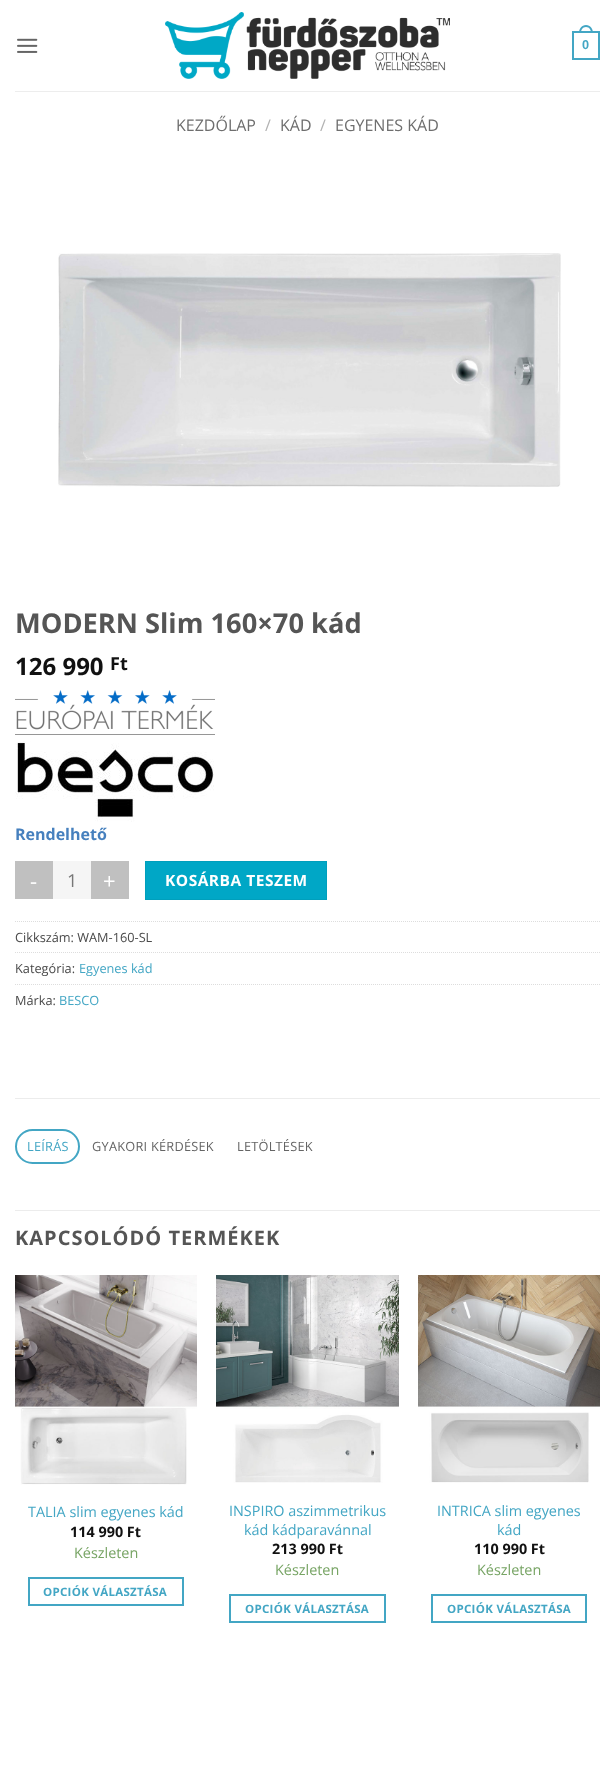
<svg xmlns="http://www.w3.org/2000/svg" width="615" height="1789">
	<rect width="100%" height="100%" fill="#FFFFFF" />
	<image x="17" y="38" width="21" height="15" href="assets/img1.png" />
	<image x="165" y="12" width="285" height="67" href="assets/img2.png" />
	<rect x="573" y="32" width="26" height="27" fill="none" stroke="#43A6C4" stroke-width="2" />
	<path d="M586 25C590.5 25 593 29 593 33H579C579 29 581.5 25 586 25ZM586 27C589.5 27 591 30 591 33H581C581 30 582.5 27 586 27Z" fill="#43A6C4" fill-rule="evenodd" />
	<text x="582" y="49" font-family="Liberation Sans" font-size="12.75" font-weight="700" fill="#43A6C4">0</text>
	<rect x="15" y="91" width="585" height="1" fill="#EDEDED" />
	<text x="176" y="131" font-family="Open Sans" font-size="16" fill="#6E6E6E">KEZDŐLAP</text>
	<text x="265" y="131" font-family="Open Sans" font-size="16" fill="#B2B2B2">/</text>
	<text x="280" y="131" font-family="Open Sans" font-size="16" fill="#6E6E6E">KÁD</text>
	<text x="320" y="131" font-family="Open Sans" font-size="16" fill="#B2B2B2">/</text>
	<text x="335" y="131" font-family="Open Sans" font-size="16" fill="#6E6E6E">EGYENES KÁD</text>
	<image x="58" y="253" width="503" height="234" href="assets/img3.png" />
	<text x="15" y="633" font-family="Open Sans" font-size="27.25" font-weight="700" fill="#555555">MODERN Slim 160×70 kád</text>
	<text x="15" y="675" font-family="Open Sans" font-size="24" font-weight="700" fill="#111111">126 990</text>
	<text x="110" y="670" font-family="Open Sans" font-size="18" font-weight="700" fill="#111111">Ft</text>
	<image x="15" y="690" width="200" height="45" href="assets/img4.png" />
	<image x="15" y="741" width="199" height="81" href="assets/img5.png" />
	<text x="15" y="840" font-family="Open Sans" font-size="16" font-weight="700" fill="#4680BE">Rendelhető</text>
	<rect x="15" y="861" width="38" height="38" fill="#C0C0C0" />
	<text x="30" y="889" font-family="Open Sans" font-size="22" letter-spacing="1" fill="#FFFFFF">-</text>
	<rect x="53" y="861" width="38" height="38" fill="#F5F5F5" />
	<text x="67" y="887" font-family="Open Sans" font-size="18" fill="#777777">1</text>
	<rect x="91" y="861" width="38" height="38" fill="#C0C0C0" />
	<text x="103" y="889" font-family="Open Sans" font-size="22" letter-spacing="1" fill="#FFFFFF">+</text>
	<rect x="145.5" y="861.5" width="181" height="38" fill="#00A7C6" stroke="#009FBC" />
	<text x="165" y="886" font-family="Open Sans" font-size="15.5" font-weight="700" letter-spacing="0.5" fill="#FFFFFF">KOSÁRBA TESZEM</text>
	<path d="M15 921.5H600" fill="none" stroke="#DDDDDD" stroke-dasharray="1 1" />
	<text x="15" y="942" font-family="Open Sans" font-size="12.75" fill="#4A4A4A">Cikkszám: WAM-160-SL</text>
	<path d="M15 952.5H600" fill="none" stroke="#DDDDDD" stroke-dasharray="1 1" />
	<text x="15" y="973" font-family="Open Sans" font-size="12.75" fill="#4A4A4A">Kategória:</text>
	<text x="79" y="973" font-family="Open Sans" font-size="12.75" fill="#43A6C4">Egyenes kád</text>
	<path d="M15 984.5H600" fill="none" stroke="#DDDDDD" stroke-dasharray="1 1" />
	<text x="15" y="1005" font-family="Open Sans" font-size="12.75" fill="#4A4A4A">Márka:</text>
	<text x="59" y="1005" font-family="Open Sans" font-size="12.75" fill="#43A6C4">BESCO</text>
	<rect x="15" y="1098" width="585" height="1" fill="#ECECEC" />
	<rect x="16" y="1130" width="63" height="33" rx="16.5" fill="none" stroke="#43A6C4" stroke-width="2" />
	<text x="27" y="1151" font-family="Open Sans" font-size="12.75" letter-spacing="0.25" fill="#43A6C4">LEÍRÁS</text>
	<g font-family="Open Sans" font-size="12.75" letter-spacing="0.25" fill="#656565">
		<text x="92" y="1151">GYAKORI KÉRDÉSEK</text>
		<text x="237" y="1151">LETÖLTÉSEK</text>
	</g>
	<rect x="15" y="1210" width="585" height="1" fill="#ECECEC" />
	<text x="15" y="1245" font-family="Open Sans" font-size="20" font-weight="700" letter-spacing="1" fill="#555555">KAPCSOLÓDÓ TERMÉKEK</text>
	<image x="15" y="1275" width="182" height="210" href="assets/img6.png" />
	<text x="28" y="1517" font-family="Open Sans" font-size="14.4" fill="#43A6C4">TALIA slim egyenes kád</text>
	<text x="70" y="1537" font-family="Open Sans" font-size="14.4" font-weight="700" fill="#111111">114 990 Ft</text>
	<text x="74" y="1558" font-family="Open Sans" font-size="14.4" fill="#77A464">Készleten</text>
	<rect x="29" y="1578" width="154" height="27" fill="none" stroke="#43A6C4" stroke-width="2" />
	<text x="43" y="1596" font-family="Open Sans" font-size="11.5" font-weight="700" letter-spacing="0.3" fill="#43A6C4">OPCIÓK VÁLASZTÁSA</text>
	<image x="216" y="1275" width="183" height="208" href="assets/img7.png" />
	<g font-family="Open Sans" font-size="14.4" fill="#43A6C4">
		<text x="229" y="1516">INSPIRO aszimmetrikus</text>
		<text x="244" y="1535">kád kádparavánnal</text>
	</g>
	<text x="272" y="1554" font-family="Open Sans" font-size="14.4" font-weight="700" fill="#111111">213 990 Ft</text>
	<text x="275" y="1575" font-family="Open Sans" font-size="14.4" fill="#77A464">Készleten</text>
	<rect x="230" y="1595" width="155" height="27" fill="none" stroke="#43A6C4" stroke-width="2" />
	<text x="245" y="1613" font-family="Open Sans" font-size="11.5" font-weight="700" letter-spacing="0.3" fill="#43A6C4">OPCIÓK VÁLASZTÁSA</text>
	<image x="418" y="1275" width="182" height="208" href="assets/img8.png" />
	<g font-family="Open Sans" font-size="14.4" fill="#43A6C4">
		<text x="437" y="1516">INTRICA slim egyenes</text>
		<text x="497" y="1535">kád</text>
	</g>
	<text x="474" y="1554" font-family="Open Sans" font-size="14.4" font-weight="700" fill="#111111">110 990 Ft</text>
	<text x="477" y="1575" font-family="Open Sans" font-size="14.4" fill="#77A464">Készleten</text>
	<rect x="432" y="1595" width="154" height="27" fill="none" stroke="#43A6C4" stroke-width="2" />
	<text x="447" y="1613" font-family="Open Sans" font-size="11.5" font-weight="700" letter-spacing="0.3" fill="#43A6C4">OPCIÓK VÁLASZTÁSA</text>
</svg>
